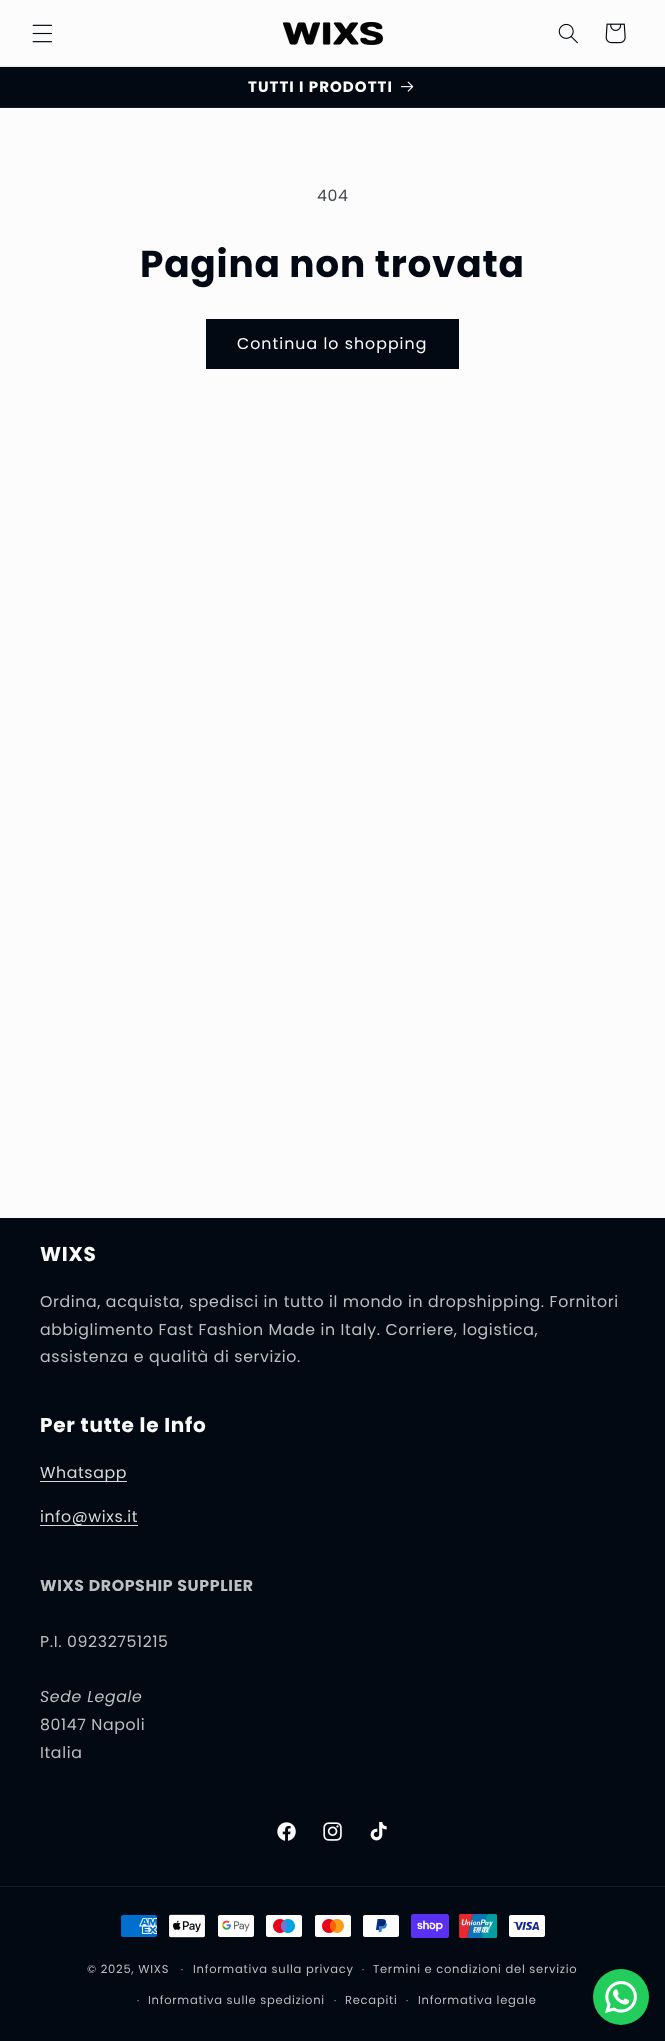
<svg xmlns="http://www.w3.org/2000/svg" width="665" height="2041">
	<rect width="100%" height="100%" fill="#FCFCFC" />
	<rect x="0" y="66" width="665" height="1" fill="#E8E9E9" />
	<image x="32" y="24" width="20" height="19" href="assets/img1.png" />
	<image x="283" y="22" width="100" height="23" href="assets/img2.png" />
	<image x="558" y="23" width="20" height="21" href="assets/img3.png" />
	<image x="605" y="23" width="21" height="21" href="assets/img4.png" />
	<rect x="0" y="67" width="665" height="40" fill="#020912" />
	<rect x="0" y="107" width="665" height="1" fill="#161C25" />
	<text x="248" y="92" font-family="Poppins" font-size="15" font-weight="700" letter-spacing="1.05" fill="#FCFCFC">TUTTI I PRODOTTI</text>
	<image x="401" y="81" width="13" height="11" href="assets/img5.png" />
	<text x="317" y="201" font-family="Poppins" font-size="15.75" letter-spacing="0.63" fill="#41464D">404</text>
	<text x="140" y="277" font-family="Poppins" font-size="37.5" font-weight="700" letter-spacing="0.75" fill="#020912">Pagina non trovata</text>
	<rect x="206" y="319" width="253" height="50" fill="#020912" />
	<text x="237" y="349" font-family="Poppins" font-size="15.75" letter-spacing="1.05" fill="#FCFCFC">Continua lo shopping</text>
	<rect x="0" y="1218" width="665" height="823" fill="#020912" />
	<text x="40" y="1261" font-family="Poppins" font-size="20" font-weight="700" letter-spacing="0.75" fill="#FCFCFC">WIXS</text>
	<g font-family="Poppins" font-size="15.75" letter-spacing="0.63" fill="#BEBFC2">
		<text x="40" y="1307">Ordina, acquista, spedisci in tutto il mondo in dropshipping. Fornitori</text>
		<text x="40" y="1335">abbiglimento Fast Fashion Made in Italy. Corriere, logistica,</text>
		<text x="40" y="1362">assistenza e qualità di servizio.</text>
	</g>
	<text x="40" y="1432" font-family="Poppins" font-size="20" font-weight="700" letter-spacing="0.75" fill="#FCFCFC">Per tutte le Info</text>
	<rect x="40" y="1481" width="87" height="1" fill="#D7D8D9" />
	<text x="40" y="1478" font-family="Poppins" font-size="15.75" letter-spacing="0.63" fill="#D7D8D9">Whatsapp</text>
	<rect x="40" y="1525" width="98" height="1" fill="#D7D8D9" />
	<text x="40" y="1522" font-family="Poppins" font-size="15.75" letter-spacing="0.63" fill="#D7D8D9">info@wixs.it</text>
	<text x="40" y="1591" font-family="Poppins" font-size="15.75" font-weight="700" letter-spacing="0.63" fill="#BEBFC2">WIXS DROPSHIP SUPPLIER</text>
	<text x="40" y="1647" font-family="Poppins" font-size="15.75" letter-spacing="0.63" fill="#BEBFC2">P.I. 09232751215</text>
	<text x="40" y="1702" font-family="Poppins" font-size="15.75" font-style="italic" letter-spacing="0.63" fill="#BEBFC2">Sede Legale</text>
	<g font-family="Poppins" font-size="15.75" letter-spacing="0.63" fill="#BEBFC2">
		<text x="40" y="1730">80147 Napoli</text>
		<text x="40" y="1758">Italia</text>
	</g>
	<image x="277" y="1822" width="19" height="19" href="assets/img6.png" />
	<image x="323" y="1822" width="19" height="19" href="assets/img7.png" />
	<image x="370" y="1822" width="17" height="19" href="assets/img8.png" />
	<rect x="0" y="1886" width="665" height="1" fill="#161C25" />
	<image x="121" y="1915" width="36" height="22" href="assets/img9.png" />
	<image x="168" y="1914" width="38" height="24" href="assets/img10.png" />
	<image x="218" y="1915" width="36" height="22" href="assets/img11.png" />
	<image x="266" y="1915" width="36" height="22" href="assets/img12.png" />
	<image x="315" y="1915" width="36" height="22" href="assets/img13.png" />
	<image x="363" y="1915" width="36" height="22" href="assets/img14.png" />
	<image x="411" y="1914" width="38" height="24" href="assets/img15.png" />
	<image x="459" y="1914" width="38" height="24" href="assets/img16.png" />
	<image x="509" y="1915" width="36" height="22" href="assets/img17.png" />
	<text x="87" y="1973" font-family="Poppins" font-size="11.5" letter-spacing="0.75" fill="#BEBFC2">© 2025, WIXS</text>
	<text x="181" y="1973" font-family="Poppins" font-size="10" letter-spacing="0.75" fill="#BEBFC2">·</text>
	<text x="193" y="1973" font-family="Poppins" font-size="11.5" letter-spacing="0.75" fill="#BEBFC2">Informativa sulla privacy</text>
	<text x="362" y="1973" font-family="Poppins" font-size="10" letter-spacing="0.75" fill="#BEBFC2">·</text>
	<text x="373" y="1973" font-family="Poppins" font-size="11.5" letter-spacing="0.75" fill="#BEBFC2">Termini e condizioni del servizio</text>
	<text x="137" y="2004" font-family="Poppins" font-size="10" letter-spacing="0.75" fill="#BEBFC2">·</text>
	<text x="148" y="2004" font-family="Poppins" font-size="11.5" letter-spacing="0.75" fill="#BEBFC2">Informativa sulle spedizioni</text>
	<text x="334" y="2004" font-family="Poppins" font-size="10" letter-spacing="0.75" fill="#BEBFC2">·</text>
	<text x="345" y="2004" font-family="Poppins" font-size="11.5" letter-spacing="0.75" fill="#BEBFC2">Recapiti</text>
	<text x="406" y="2004" font-family="Poppins" font-size="10" letter-spacing="0.75" fill="#BEBFC2">·</text>
	<text x="418" y="2004" font-family="Poppins" font-size="11.5" letter-spacing="0.75" fill="#BEBFC2">Informativa legale</text>
	<circle cx="621" cy="1997" r="28" fill="#22CD5B" />
	<image x="605" y="1981" width="32" height="32" href="assets/img18.png" />
</svg>
